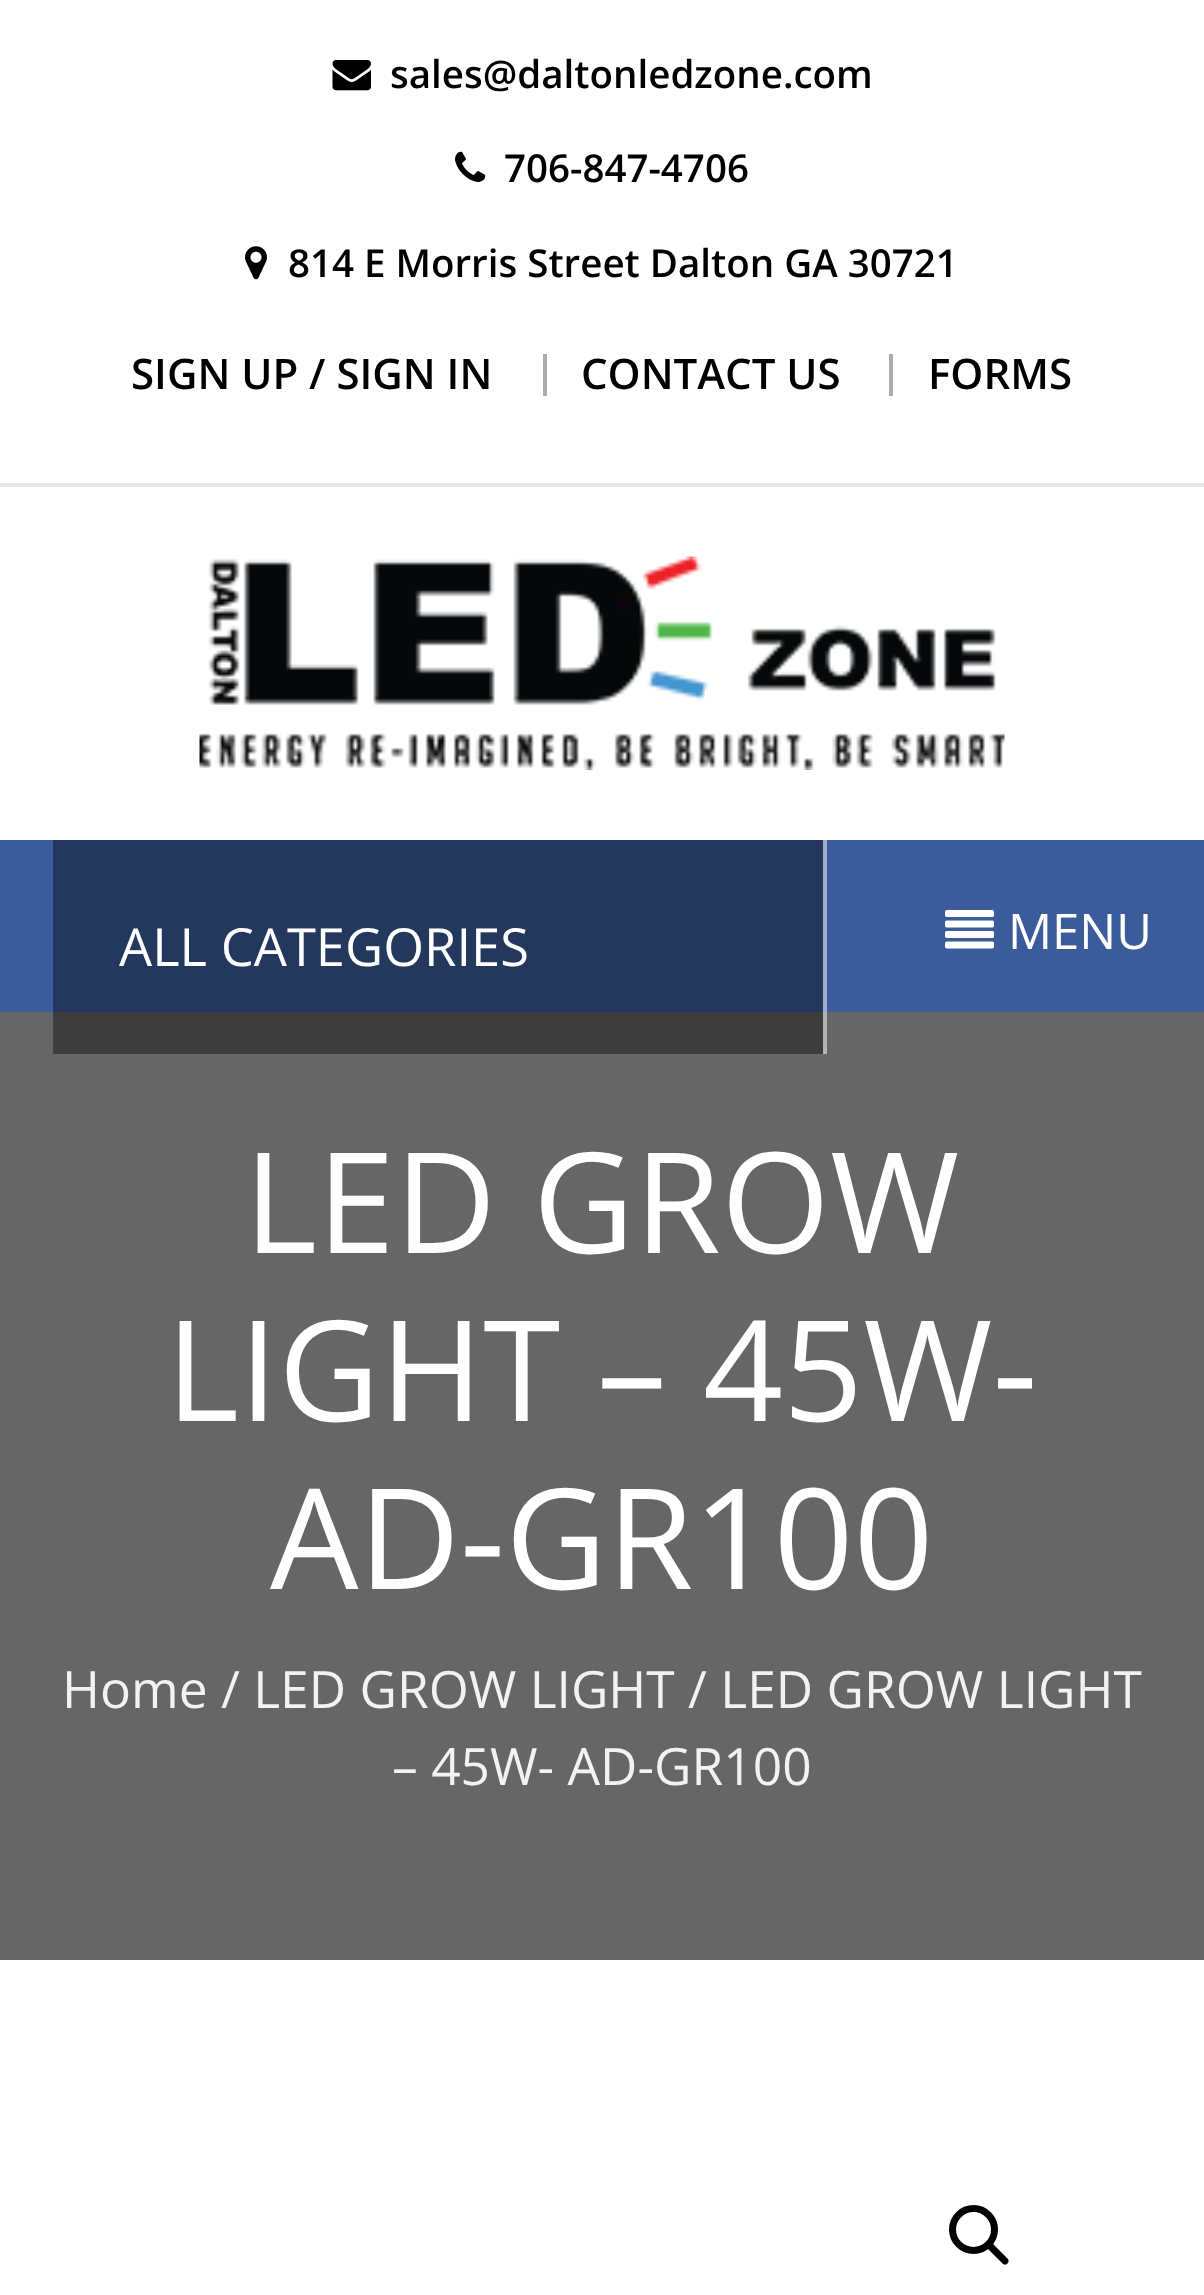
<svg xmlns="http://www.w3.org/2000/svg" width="1204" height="2295">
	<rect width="100%" height="100%" fill="#FFFFFF" />
	<rect x="0" y="483" width="1204" height="4" fill="#E7E7E7" />
	<image x="332" y="60" width="39" height="31" href="assets/img1.png" />
	<text x="390" y="88" font-family="Open Sans" font-size="38.5" font-weight="600" fill="#000000">sales@daltonledzone.com</text>
	<image x="455" y="151" width="31" height="31" href="assets/img2.png" />
	<text x="504" y="182" font-family="Open Sans" font-size="38.5" font-weight="600" fill="#000000">706-847-4706</text>
	<image x="245" y="246" width="22" height="34" href="assets/img3.png" />
	<text x="288" y="277" font-family="Open Sans" font-size="38.5" font-weight="600" fill="#000000">814 E Morris Street Dalton GA 30721</text>
	<text x="131" y="389" font-family="Open Sans" font-size="42" font-weight="600" fill="#000000">SIGN UP / SIGN IN</text>
	<rect x="543" y="354" width="4" height="42" fill="#ADACAC" />
	<text x="581" y="389" font-family="Open Sans" font-size="42" font-weight="600" fill="#000000">CONTACT US</text>
	<rect x="889" y="354" width="4" height="42" fill="#ADACAC" />
	<text x="928" y="389" font-family="Open Sans" font-size="42" font-weight="600" fill="#000000">FORMS</text>
	<image x="199" y="556" width="806" height="214" href="assets/img4.png" />
	<rect x="0" y="840" width="1204" height="172" fill="#3C5B9B" />
	<rect x="53" y="840" width="770" height="172" fill="#24375D" />
	<rect x="823" y="840" width="4" height="172" fill="#9EADCD" />
	<text x="119" y="966" font-family="Open Sans" font-size="52.5" fill="#FFFFFF">ALL CATEGORIES</text>
	<image x="945" y="910" width="49" height="39" href="assets/img5.png" />
	<text x="1008" y="949" font-family="Open Sans" font-size="49" fill="#FFFFFF">MENU</text>
	<rect x="0" y="1012" width="1204" height="948" fill="#666666" />
	<rect x="53" y="1012" width="770" height="42" fill="#3D3D3D" />
	<rect x="823" y="1012" width="4" height="42" fill="#B3B3B3" />
	<g font-family="Open Sans" font-size="140" fill="#FFFFFF">
		<text x="244" y="1253">LED GROW</text>
		<text x="166" y="1421">LIGHT – 45W-</text>
		<text x="270" y="1589">AD-GR100</text>
	</g>
	<g font-family="Open Sans" font-size="51.5" fill="#F2F2F2">
		<text x="62" y="1708">Home / LED GROW LIGHT / LED GROW LIGHT</text>
		<text x="392" y="1785">– 45W- AD-GR100</text>
	</g>
	<circle cx="973.5" cy="2229.5" r="21" fill="none" stroke="#000000" stroke-width="7" />
	<path d="M987.5 2243.5C989 2242.5 991 2242.5 992.5 2243.5L1007.5 2258.5C1009 2260 1009 2262 1007.5 2263.5C1006 2265 1004 2265 1002.5 2263.5L987.5 2248.5C986 2247 986 2245 987.5 2243.5Z" fill="#000000" />
</svg>
